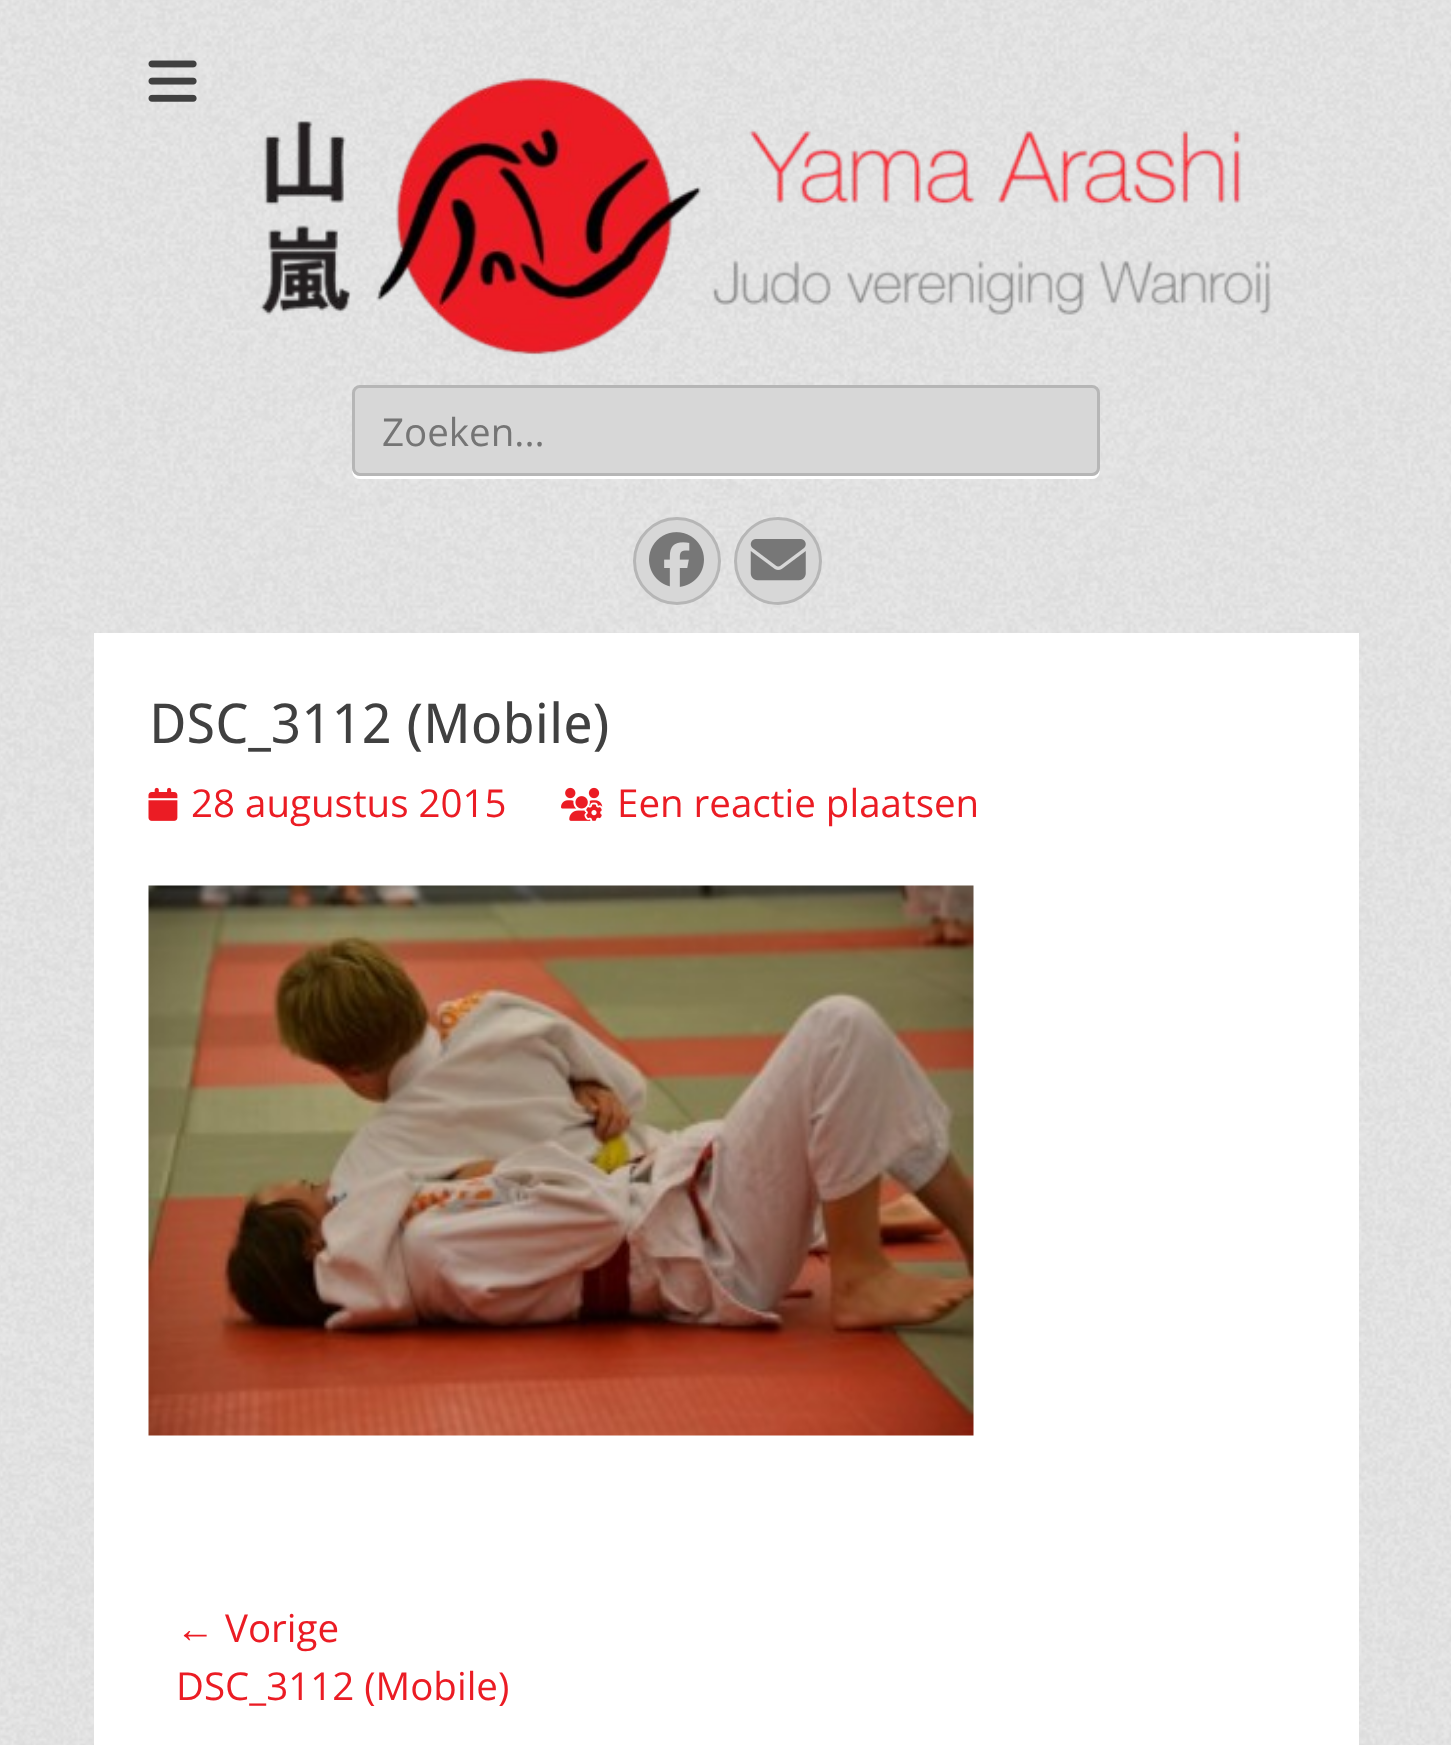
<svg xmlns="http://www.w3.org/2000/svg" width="1451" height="1745">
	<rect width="100%" height="100%" fill="#FFFFFF" />
	<image x="0" y="0" width="1451" height="1745" href="assets/img1.png" />
	<image x="148" y="60" width="49" height="42" href="assets/img2.png" />
	<image x="260" y="77" width="1011" height="278" href="assets/img3.png" />
	<path d="M352 468C352 473 353 479 360 479H1092C1099 479 1100 473 1100 468C1100 472 1096 476 1092 476H360C356 476 352 472 352 468Z" fill="#FFFFFF" />
	<rect x="353.5" y="386.5" width="745" height="88" rx="6.5" fill="#D7D7D7" stroke="#B6B6B6" stroke-width="3" />
	<text x="382" y="446" font-family="Open Sans" font-size="38.5" fill="#757575">Zoeken...</text>
	<circle cx="677" cy="561" r="42.5" fill="#D7D7D7" stroke="#B6B6B6" stroke-width="3" />
	<image x="649" y="532" width="55" height="55" href="assets/img4.png" />
	<circle cx="778" cy="561" r="42.5" fill="#D7D7D7" stroke="#B6B6B6" stroke-width="3" />
	<image x="750" y="539" width="56" height="42" href="assets/img5.png" />
	<rect x="94" y="633" width="1265" height="1112" fill="#FFFFFF" />
	<text x="149" y="743" font-family="Droid Sans" font-size="55" fill="#404040">DSC_3112 (Mobile)</text>
	<image x="148" y="787" width="30" height="34" href="assets/img6.png" />
	<text x="191" y="817" font-family="Open Sans" font-size="38.5" fill="#EB1C24">28 augustus 2015</text>
	<image x="561" y="787" width="42" height="34" href="assets/img7.png" />
	<text x="617" y="817" font-family="Open Sans" font-size="38.5" fill="#EB1C24">Een reactie plaatsen</text>
	<image x="148" y="885" width="826" height="551" href="assets/img8.png" />
	<text x="176" y="1642" font-family="Liberation Sans" font-size="38.5" fill="#EB1C24">←</text>
	<g font-family="Open Sans" font-size="38.5" fill="#EB1C24">
		<text x="225" y="1642">Vorige</text>
		<text x="176" y="1700">DSC_3112 (Mobile)</text>
	</g>
</svg>
